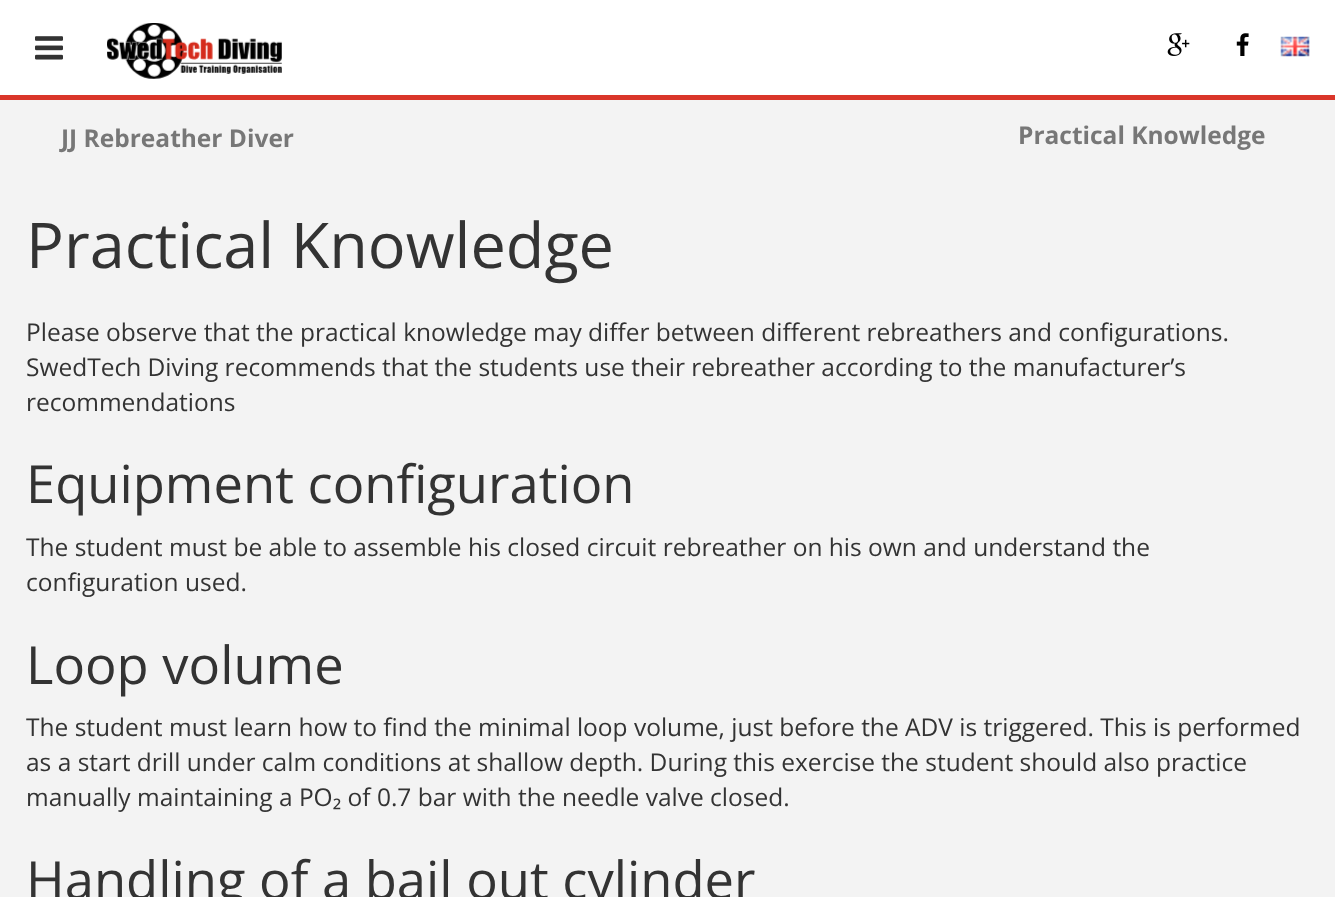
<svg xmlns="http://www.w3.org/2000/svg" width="1335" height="897">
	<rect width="100%" height="100%" fill="#F3F3F3" />
	<rect x="0" y="0" width="1335" height="95" fill="#FFFFFF" />
	<rect x="0" y="95" width="1335" height="5" fill="#DA362A" />
	<image x="35" y="36" width="28" height="24" href="assets/img1.png" />
	<image x="107" y="23" width="175" height="56" href="assets/img2.png" />
	<image x="1167" y="33" width="23" height="23" href="assets/img3.png" />
	<image x="1236" y="33" width="13" height="23" href="assets/img4.png" />
	<image x="1280" y="36" width="30" height="21" href="assets/img5.png" />
	<g font-family="Open Sans" font-size="24.5" font-weight="700" fill="#777777">
		<text x="61" y="147">JJ Rebreather Diver</text>
		<text x="1018" y="144">Practical Knowledge</text>
	</g>
	<text x="26" y="268" font-family="Open Sans" font-size="63" fill="#333333">Practical Knowledge</text>
	<g font-family="Open Sans" font-size="24.5" fill="#333333">
		<text x="26" y="341">Please observe that the practical knowledge may differ between different rebreathers and configurations.</text>
		<text x="26" y="376">SwedTech Diving recommends that the students use their rebreather according to the manufacturer’s</text>
		<text x="26" y="411">recommendations</text>
	</g>
	<text x="26" y="503" font-family="Open Sans" font-size="52.5" fill="#333333">Equipment configuration</text>
	<g font-family="Open Sans" font-size="24.5" fill="#333333">
		<text x="26" y="556">The student must be able to assemble his closed circuit rebreather on his own and understand the</text>
		<text x="26" y="591">configuration used.</text>
	</g>
	<text x="26" y="684" font-family="Open Sans" font-size="52.5" fill="#333333">Loop volume</text>
	<g font-family="Open Sans" font-size="24.5" fill="#333333">
		<text x="26" y="736">The student must learn how to find the minimal loop volume, just before the ADV is triggered. This is performed</text>
		<text x="26" y="771">as a start drill under calm conditions at shallow depth. During this exercise the student should also practice</text>
		<text x="26" y="806">manually maintaining a PO₂ of 0.7 bar with the needle valve closed.</text>
	</g>
	<text x="26" y="899" font-family="Open Sans" font-size="52.5" fill="#333333">Handling of a bail out cylinder</text>
</svg>
